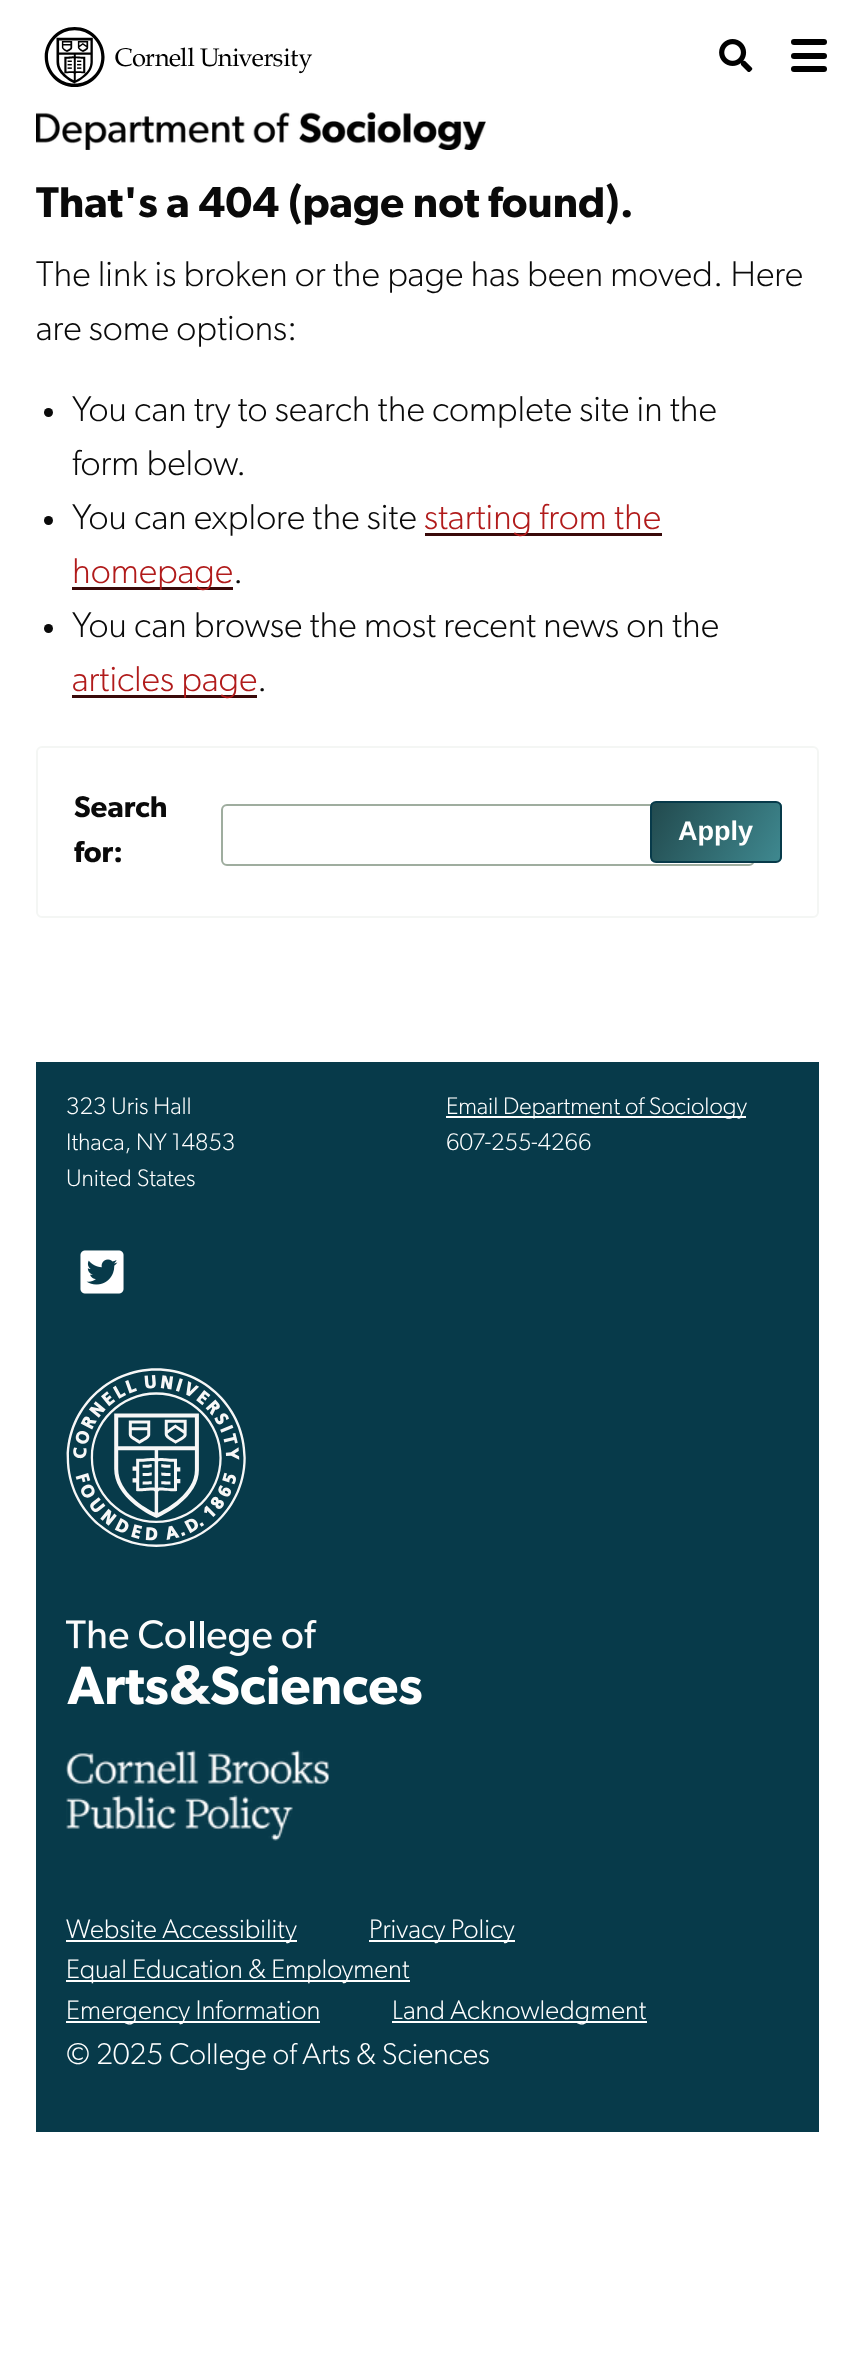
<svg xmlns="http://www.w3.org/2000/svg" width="854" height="2360">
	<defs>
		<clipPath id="clip1"><rect x="650" y="801" width="132" height="62" rx="6" /></clipPath>
		<linearGradient id="g1" gradientUnits="userSpaceOnUse" x1="663" y1="783" x2="833" y2="881"><stop offset="0" stop-color="#224A4E" /><stop offset="0.9" stop-color="#4698A0" /></linearGradient>
	</defs>
	<rect width="100%" height="100%" fill="#FFFFFF" />
	<image x="44" y="27" width="269" height="60" href="assets/img1.png" />
	<image x="719" y="39" width="34" height="33" href="assets/img2.png" />
	<rect x="791" y="53" width="36" height="6" rx="3" fill="#000000" />
	<rect x="791" y="39" width="36" height="6" rx="3" fill="#000000" />
	<rect x="791" y="66" width="36" height="6" rx="3" fill="#000000" />
	<image x="36" y="112" width="450" height="38" href="assets/img3.png" />
	<text x="36" y="217" font-family="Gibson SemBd" font-size="43.25" font-weight="600" fill="#0A0A0A">That's a 404 (page not found).</text>
	<g font-family="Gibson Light" font-size="36" font-weight="300" fill="#0A0A0A">
		<text x="36" y="286">The link is broken or the page has been moved. Here</text>
		<text x="36" y="340">are some options:</text>
	</g>
	<circle cx="48.5" cy="412.5" r="4.5" fill="#0A0A0A" />
	<g font-family="Gibson Light" font-size="36" font-weight="300" fill="#0A0A0A">
		<text x="72" y="421">You can try to search the complete site in the</text>
		<text x="72" y="475">form below.</text>
	</g>
	<circle cx="48.5" cy="520.5" r="4.5" fill="#0A0A0A" />
	<text x="72" y="529" font-family="Gibson Light" font-size="36" font-weight="300" fill="#0A0A0A">You can explore the site</text>
	<rect x="425" y="533" width="237" height="3" fill="#390909" />
	<text x="424" y="529" font-family="Gibson Light" font-size="36" font-weight="300" fill="#B11B1B">starting from the</text>
	<rect x="72" y="587" width="161" height="3" fill="#390909" />
	<text x="72" y="583" font-family="Gibson Light" font-size="36" font-weight="300" fill="#B11B1B">homepage</text>
	<text x="233" y="583" font-family="Gibson Light" font-size="36" font-weight="300" fill="#0A0A0A">.</text>
	<circle cx="48.5" cy="628.5" r="4.5" fill="#0A0A0A" />
	<text x="72" y="637" font-family="Gibson Light" font-size="36" font-weight="300" fill="#0A0A0A">You can browse the most recent news on the</text>
	<rect x="72" y="695" width="185" height="3" fill="#390909" />
	<text x="72" y="691" font-family="Gibson Light" font-size="36" font-weight="300" fill="#B11B1B">articles page</text>
	<text x="257" y="691" font-family="Gibson Light" font-size="36" font-weight="300" fill="#0A0A0A">.</text>
	<rect x="37" y="747" width="781" height="170" rx="5" fill="none" stroke="#F4F6F4" stroke-width="2" />
	<g font-family="Gibson SemBd" font-size="30" font-weight="600" fill="#0A0A0A">
		<text x="74" y="817">Search</text>
		<text x="74" y="862">for:</text>
	</g>
	<rect x="222" y="805" width="532" height="60" rx="5" fill="none" stroke="#9FAD9F" stroke-width="2" />
	<g clip-path="url(#clip1)">
		<rect x="651" y="803" width="131" height="58" fill="url(#g1)" />
	</g>
	<rect x="651" y="802" width="130" height="60" rx="5" fill="none" stroke="#073A4A" stroke-width="2" />
	<text x="678" y="840" font-family="Liberation Sans" font-size="27" font-weight="700" fill="#FFFFFF">Apply</text>
	<rect x="36" y="1062" width="783" height="1070" fill="#073A4A" />
	<g font-family="Gibson Light" font-size="24" font-weight="300" fill="#FFFFFF">
		<text x="66" y="1114">323 Uris Hall</text>
		<text x="66" y="1150">Ithaca, NY 14853</text>
		<text x="66" y="1186">United States</text>
	</g>
	<rect x="446" y="1116" width="300" height="2" fill="#FFFFFF" />
	<g font-family="Gibson Light" font-size="24" font-weight="300" fill="#FFFFFF">
		<text x="446" y="1114">Email Department of Sociology</text>
		<text x="446" y="1150">607-255-4266</text>
	</g>
	<image x="80" y="1250" width="44" height="44" href="assets/img4.png" />
	<image x="66" y="1368" width="180" height="179" href="assets/img5.png" />
	<image x="66" y="1620" width="356" height="85" href="assets/img6.png" />
	<image x="66" y="1750" width="263" height="91" href="assets/img7.png" />
	<rect x="66" y="1940" width="231" height="2" fill="#FFFFFF" />
	<text x="66" y="1938" font-family="Gibson Light" font-size="27" font-weight="300" fill="#FFFFFF">Website Accessibility</text>
	<rect x="369" y="1940" width="146" height="2" fill="#FFFFFF" />
	<text x="369" y="1938" font-family="Gibson Light" font-size="27" font-weight="300" fill="#FFFFFF">Privacy Policy</text>
	<rect x="66" y="1980" width="344" height="2" fill="#FFFFFF" />
	<text x="66" y="1978" font-family="Gibson Light" font-size="27" font-weight="300" fill="#FFFFFF">Equal Education &amp; Employment</text>
	<rect x="66" y="2021" width="254" height="2" fill="#FFFFFF" />
	<text x="66" y="2019" font-family="Gibson Light" font-size="27" font-weight="300" fill="#FFFFFF">Emergency Information</text>
	<rect x="392" y="2021" width="255" height="2" fill="#FFFFFF" />
	<text x="392" y="2019" font-family="Gibson Light" font-size="27" font-weight="300" fill="#FFFFFF">Land Acknowledgment</text>
	<text x="66" y="2064" font-family="Gibson Light" font-size="30" font-weight="300" fill="#FFFFFF">© 2025 College of Arts &amp; Sciences</text>
</svg>
